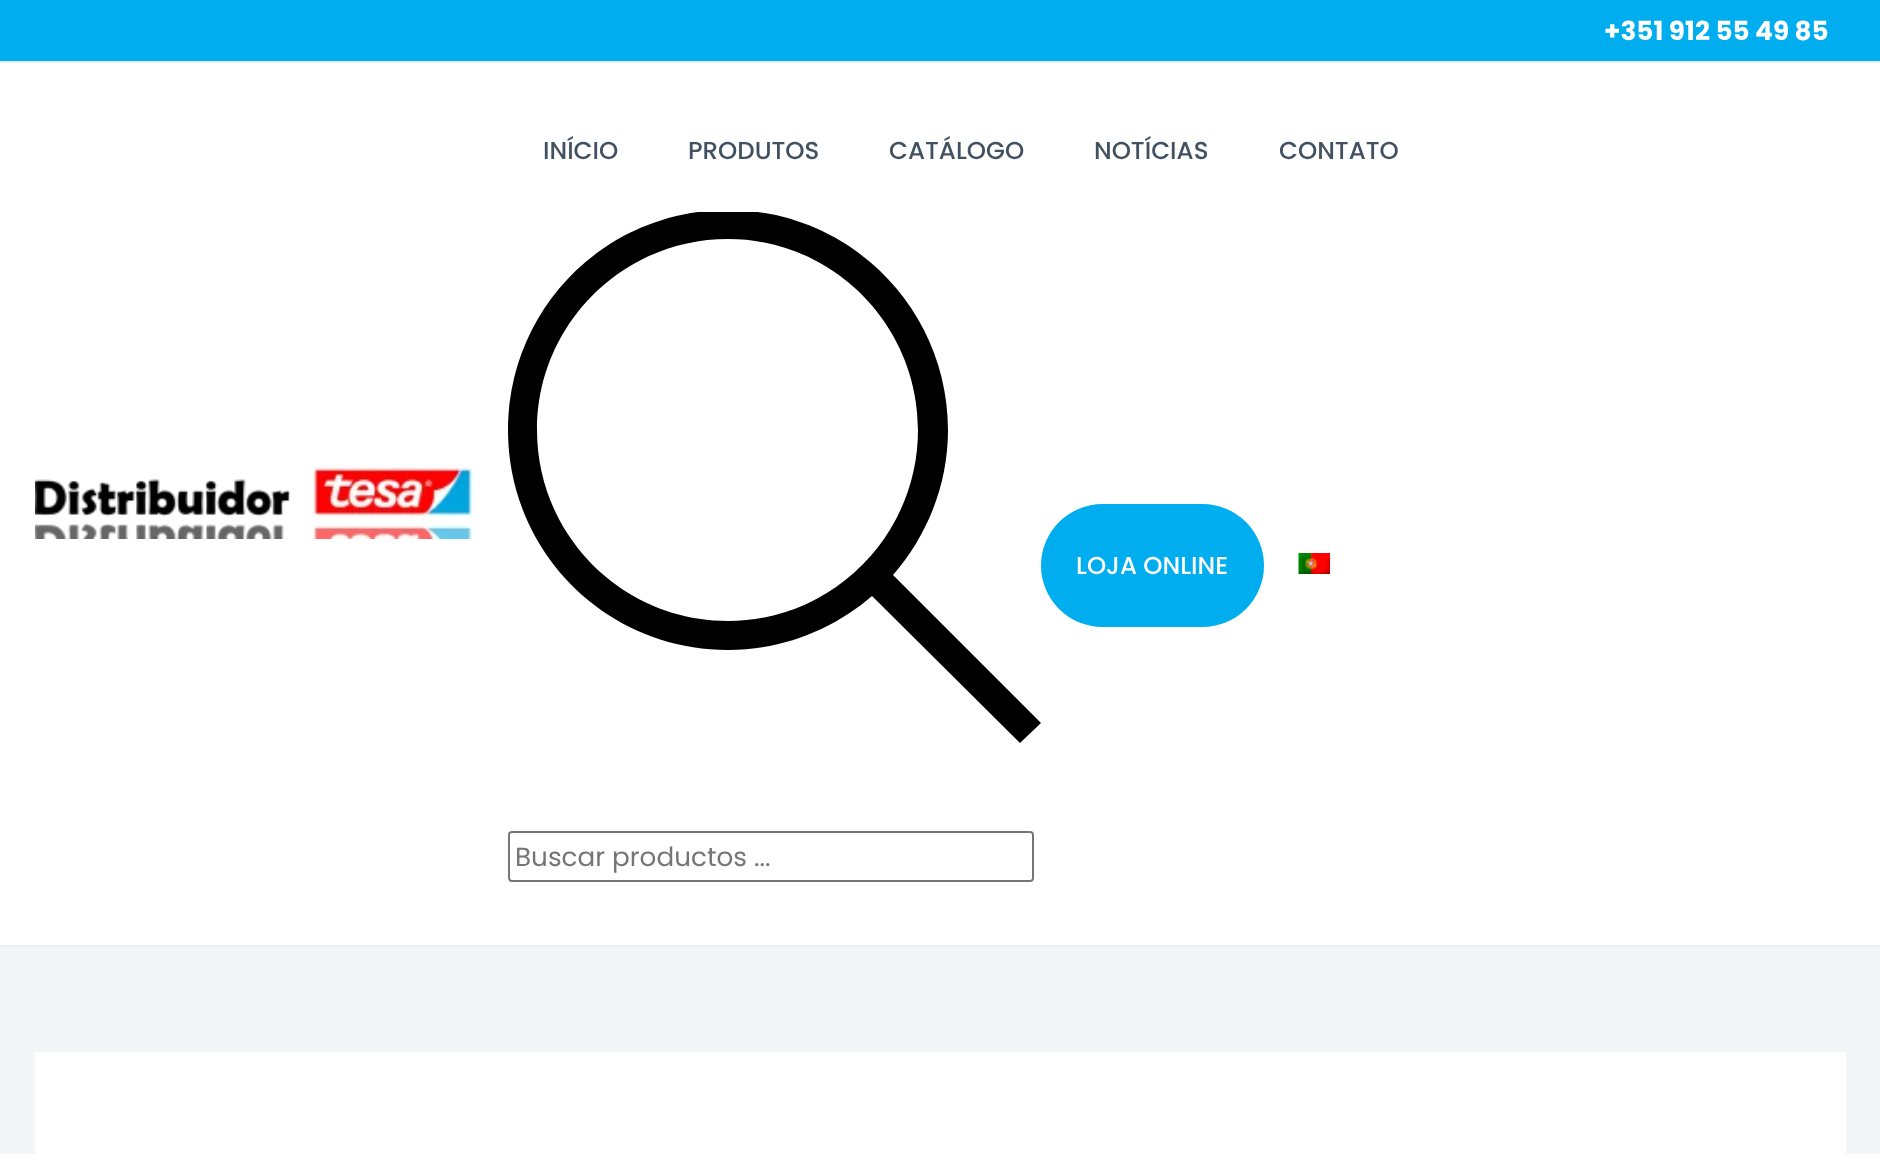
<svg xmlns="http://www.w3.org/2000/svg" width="1880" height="1154">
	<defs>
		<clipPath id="clip1"><rect x="508" y="212" width="533" height="532" /></clipPath>
	</defs>
	<rect width="100%" height="100%" fill="#F4F5F6" />
	<rect x="0" y="0" width="1880" height="61" fill="#00ADEE" />
	<rect x="0" y="61" width="1880" height="2" fill="#EAEAEA" />
	<text x="1604" y="40" font-family="Poppins" font-size="26.25" font-weight="700" fill="#FFFFFF">+351 912 55 49 85</text>
	<rect x="0" y="63" width="1880" height="882" fill="#FFFFFF" />
	<rect x="0" y="945" width="1880" height="2" fill="#EDEDED" />
	<image x="35" y="467" width="438" height="72" href="assets/img1.png" />
	<g font-family="Poppins" font-size="24.5" font-weight="500" fill="#415161">
		<text x="543" y="159">INÍCIO</text>
		<text x="688" y="159">PRODUTOS</text>
		<text x="889" y="159">CATÁLOGO</text>
		<text x="1094" y="159">NOTÍCIAS</text>
		<text x="1279" y="159">CONTATO</text>
	</g>
	<rect x="1041" y="504" width="223" height="123" rx="61.5" fill="#00ADEE" />
	<text x="1076" y="574" font-family="Poppins" font-size="24.5" font-weight="500" fill="#FFFFFF">LOJA ONLINE</text>
	<image x="1298" y="553" width="32" height="21" href="assets/img2.png" />
	<g clip-path="url(#clip1)">
		<path d="M1041 723L893 575C927 536 948 485 948 430C948 308 849 210 728 210C606 210 508 308 508 430C508 552 606 650 728 650C783 650 834 629 872 596L1020 743ZM537 430C537 325 622 239 728 239C833 239 918 325 918 430C918 535 833 621 728 621C622 621 537 535 537 430Z" fill="#000000" />
	</g>
	<rect x="509" y="832" width="524" height="49" rx="3" fill="none" stroke="#767676" stroke-width="2" />
	<text x="515" y="866" font-family="Poppins" font-size="26.25" fill="#757575">Buscar productos ...</text>
	<rect x="35" y="1052" width="1811" height="102" fill="#FFFFFF" />
</svg>
